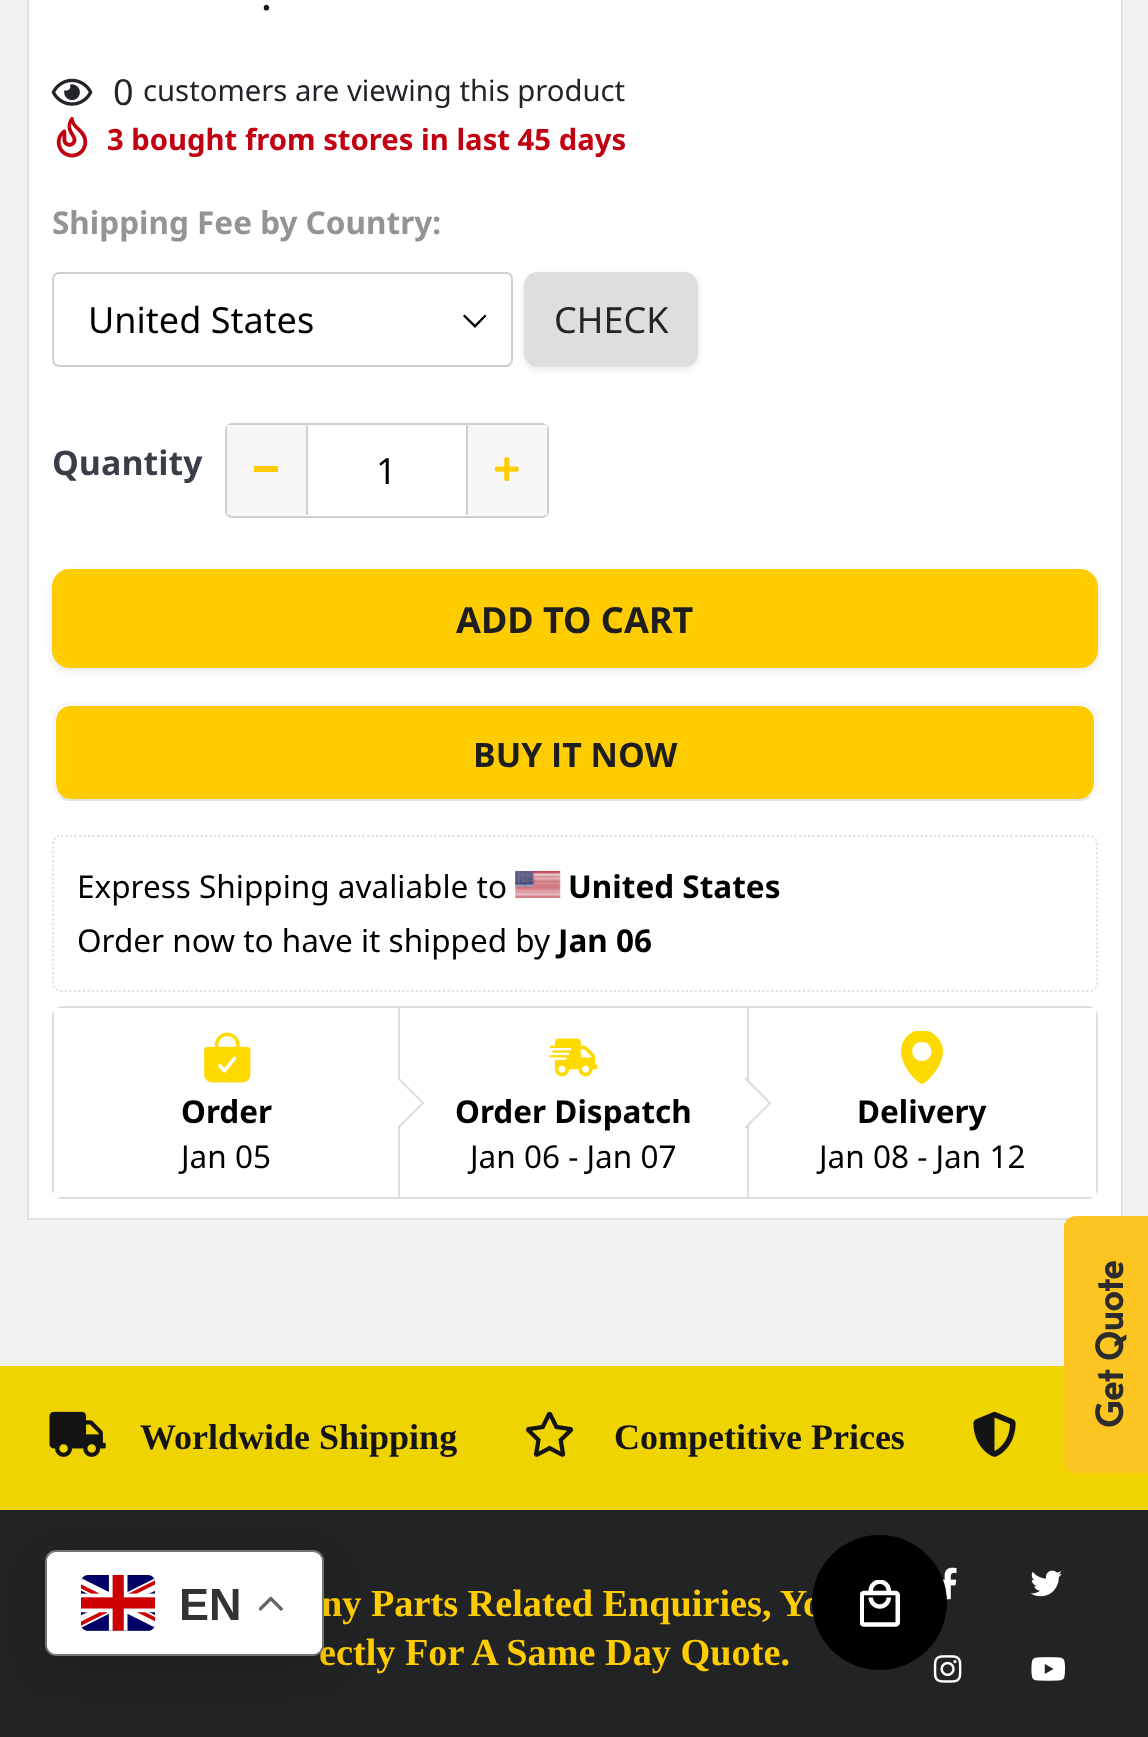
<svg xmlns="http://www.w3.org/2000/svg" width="1148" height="1737">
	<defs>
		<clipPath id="clip1"><rect x="896" y="1031" width="54" height="54" /></clipPath>
	</defs>
	<rect width="100%" height="100%" fill="#F2F2F2" />
	<rect x="28" y="-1" width="1094" height="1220" fill="#FFFFFF" stroke="#DEE2E6" stroke-width="2" />
	<text x="261" y="10" font-family="Noto Sans" font-size="40" font-weight="500" fill="#141414">.</text>
	<image x="51" y="78" width="42" height="28" href="assets/img1.png" />
	<text x="113" y="105" font-family="Noto Sans" font-size="36" fill="#212529">0</text>
	<text x="143" y="101" font-family="Noto Sans" font-size="29.25" fill="#212529">customers are viewing this product</text>
	<image x="56" y="117" width="32" height="41" href="assets/img2.png" />
	<text x="107" y="150" font-family="Noto Sans" font-size="29.25" font-weight="700" fill="#C10011">3 bought from stores in last 45 days</text>
	<text x="52" y="234" font-family="Noto Sans" font-size="31.5" font-weight="700" fill="#949494">Shipping Fee by Country:</text>
	<path d="M475 328L463 316L464.5 314.5L475 324.5L485 314.5L486.5 316Z" fill="#000000" />
	<rect x="53" y="273" width="459" height="93" rx="6" fill="none" stroke="#CCCFD6" stroke-width="2" />
	<text x="88" y="333" font-family="Noto Sans" font-size="36" fill="#000000">United States</text>
	<rect x="524" y="275" width="174" height="94" rx="14" fill="#000000" fill-opacity="0.1" filter="blur(3.5px)" />
	<rect x="524" y="272" width="174" height="95" rx="14" fill="#DEDEDE" />
	<text x="554" y="333" font-family="Noto Sans" font-size="36" fill="#212529">CHECK</text>
	<text x="52" y="475" font-family="Open Sans" font-size="33.75" font-weight="700" fill="#383E47">Quantity</text>
	<rect x="226" y="424" width="322" height="93" rx="6" fill="none" stroke="#CCCFD6" stroke-width="2" />
	<rect x="227" y="425" width="79" height="90" fill="#F7F7F7" />
	<rect x="306" y="425" width="2" height="90" fill="#CCCFD6" />
	<rect x="254" y="466" width="24" height="6" fill="#FFCC00" />
	<text x="376" y="484" font-family="Noto Sans" font-size="36" fill="#000000">1</text>
	<rect x="468" y="425" width="79" height="90" fill="#F7F7F7" />
	<rect x="466" y="425" width="2" height="90" fill="#CCCFD6" />
	<image x="495" y="457" width="24" height="24" href="assets/img3.png" />
	<rect x="52" y="572" width="1046" height="99" rx="18" fill="#000000" fill-opacity="0.1" filter="blur(3.5px)" />
	<rect x="54.5" y="571.5" width="1041" height="94" rx="15.5" fill="#FFCC00" stroke="#FFCC00" stroke-width="5" />
	<text x="456" y="633" font-family="Noto Sans" font-size="36" font-weight="700" fill="#1E1E1E">ADD TO CART</text>
	<path d="M70 706H1080C1087 706 1094 713 1094 720V783C1094 792 1087 799 1080 799H70C62 799 56 792 56 783V720C56 713 62 706 70 706Z" fill="#FFCC00" />
	<path d="M70 702C65 702 60 704 57 707L60 710C63 708 66 706 70 706H1080C1084 706 1087 708 1090 710L1093 707C1090 704 1085 702 1080 702Z" fill="#F7F7F7" />
	<path d="M1098 783V720C1098 715 1096 710 1093 707L1090 710C1092 713 1094 716 1094 720V783C1094 788 1091 793 1088 796L1091 797C1095 794 1098 789 1098 783Z" fill="#F7F7F7" />
	<path d="M70 801H1080C1084 801 1088 800 1091 797L1088 796C1086 798 1083 799 1080 799H70C67 799 64 798 62 796L59 797C62 800 66 801 70 801Z" fill="#E2E4E8" />
	<path d="M57 707C54 711 52 715 52 720V783C52 789 55 794 59 797L62 796C58 793 56 788 56 783V720C56 716 58 713 60 710Z" fill="#F7F7F7" />
	<text x="473" y="767" font-family="Open Sans" font-size="33.75" font-weight="700" fill="#1E1E1E">BUY IT NOW</text>
	<path d="M61 836H1089C1093.5 836 1097 839.5 1097 844V983C1097 987.5 1093.5 991 1089 991H61C56.5 991 53 987.5 53 983V844C53 839.5 56.5 836 61 836Z" fill="none" stroke="#E2E2E2" stroke-width="2.2" stroke-dasharray="2.25 2.25" />
	<text x="77" y="898" font-family="Noto Sans" font-size="31.5" fill="#000000">Express Shipping avaliable to</text>
	<image x="515" y="871" width="46" height="27" href="assets/img4.png" />
	<text x="568" y="898" font-family="Noto Sans" font-size="31.5" font-weight="700" fill="#000000">United States</text>
	<text x="77" y="952" font-family="Noto Sans" font-size="31.5" fill="#000000">Order now to have it shipped by</text>
	<text x="558" y="952" font-family="Noto Sans" font-size="31.5" font-weight="700" fill="#000000">Jan 06</text>
	<rect x="53" y="1007" width="1044" height="191" rx="10" fill="none" stroke="#DEDEDE" stroke-width="2" />
	<rect x="54" y="1008" width="8" height="189" fill="#FFFFFF" />
	<rect x="398" y="1008" width="2" height="189" fill="#DEDEDE" />
	<image x="204" y="1032" width="47" height="51" href="assets/img5.png" />
	<text x="181" y="1123" font-family="Noto Sans" font-size="31.5" font-weight="700" fill="#000000">Order</text>
	<text x="181" y="1168" font-family="Noto Sans" font-size="31.5" fill="#000000">Jan 05</text>
	<path d="M374 1103L399 1078L424 1103L399 1128Z" fill="#FFFFFF" />
	<path d="M399 1077.5L424.5 1103H421.5L397.5 1079ZM424.5 1103L399 1128.5L397.5 1127L421.5 1103Z" fill="#222426" fill-opacity="0.15" />
	<rect x="747" y="1008" width="2" height="189" fill="#DEDEDE" />
	<image x="550" y="1038" width="48" height="39" href="assets/img6.png" />
	<text x="455" y="1123" font-family="Noto Sans" font-size="31.5" font-weight="700" fill="#000000">Order Dispatch</text>
	<text x="470" y="1168" font-family="Noto Sans" font-size="31.5" fill="#000000">Jan 06 - Jan 07</text>
	<path d="M721 1103L746 1078L772 1103L746 1128Z" fill="#FFFFFF" />
	<path d="M746 1077.5L771.5 1103H768.5L744.5 1079ZM771.5 1103L746 1128.5L744.5 1127L768.5 1103Z" fill="#222426" fill-opacity="0.15" />
	<rect x="1088" y="1008" width="8" height="189" fill="#FFFFFF" />
	<g clip-path="url(#clip1)">
		<path d="M922 1030C910 1030 901 1040 901 1051C901 1067 918 1084 922 1084C926 1084 943 1067 943 1051C943 1040 933 1030 922 1030ZM922 1061C909 1061 909 1042 922 1042C934 1042 935 1061 922 1061Z" fill="#FFDA00" />
	</g>
	<text x="857" y="1123" font-family="Noto Sans" font-size="31.5" font-weight="700" fill="#000000">Delivery</text>
	<text x="819" y="1168" font-family="Noto Sans" font-size="31.5" fill="#000000">Jan 08 - Jan 12</text>
	<rect x="0" y="1366" width="1148" height="144" fill="#EFD401" />
	<image x="49" y="1411" width="57" height="46" href="assets/img7.png" />
	<text x="140" y="1449" font-family="Liberation Serif" font-size="36" font-weight="700" fill="#141414">Worldwide Shipping</text>
	<image x="526" y="1411" width="48" height="46" href="assets/img8.png" />
	<text x="614" y="1449" font-family="Liberation Serif" font-size="36" font-weight="700" fill="#141414">Competitive Prices</text>
	<image x="973" y="1411" width="43" height="46" href="assets/img9.png" />
	<rect x="0" y="1510" width="1148" height="227" fill="#222325" />
	<g font-family="Liberation Serif" font-size="38.25" font-weight="700" fill="#FFCC00">
		<text x="321" y="1616">ny Parts Related Enquiries, Yo</text>
		<text x="319" y="1665">ectly For A Same Day Quote.</text>
	</g>
	<image x="942" y="1567" width="15" height="33" href="assets/img10.png" />
	<image x="1030" y="1570" width="32" height="27" href="assets/img11.png" />
	<image x="933" y="1655" width="29" height="28" href="assets/img12.png" />
	<image x="1031" y="1657" width="34" height="24" href="assets/img13.png" />
	<path d="M1064 1462V1227C1064 1221 1069 1216 1076 1216H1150V1473H1076C1069 1473 1064 1468 1064 1462Z" fill="#FCC521" />
	<text x="1123" y="1428" transform="rotate(-90 1123 1428)" font-family="Alata" font-size="36" font-weight="700" fill="#2C2C2C">Get Quote</text>
	<rect x="45" y="1562" width="279" height="105" rx="11" fill="#000000" fill-opacity="0.15" filter="blur(17px)" />
	<rect x="46" y="1551" width="277" height="104" rx="10" fill="#FFFFFF" stroke="#747474" stroke-width="2" />
	<rect x="47" y="1553" width="275" height="101" rx="9" fill="#FFFFFF" />
	<image x="81" y="1575" width="74" height="56" href="assets/img14.png" />
	<text x="179" y="1620" font-family="Liberation Sans" font-size="45" font-weight="700" fill="#333333">EN</text>
	<image x="259" y="1596" width="25" height="15" href="assets/img15.png" />
	<circle cx="879.5" cy="1602.5" r="67.5" fill="#000000" />
	<image x="860" y="1580" width="40" height="47" href="assets/img16.png" />
</svg>
